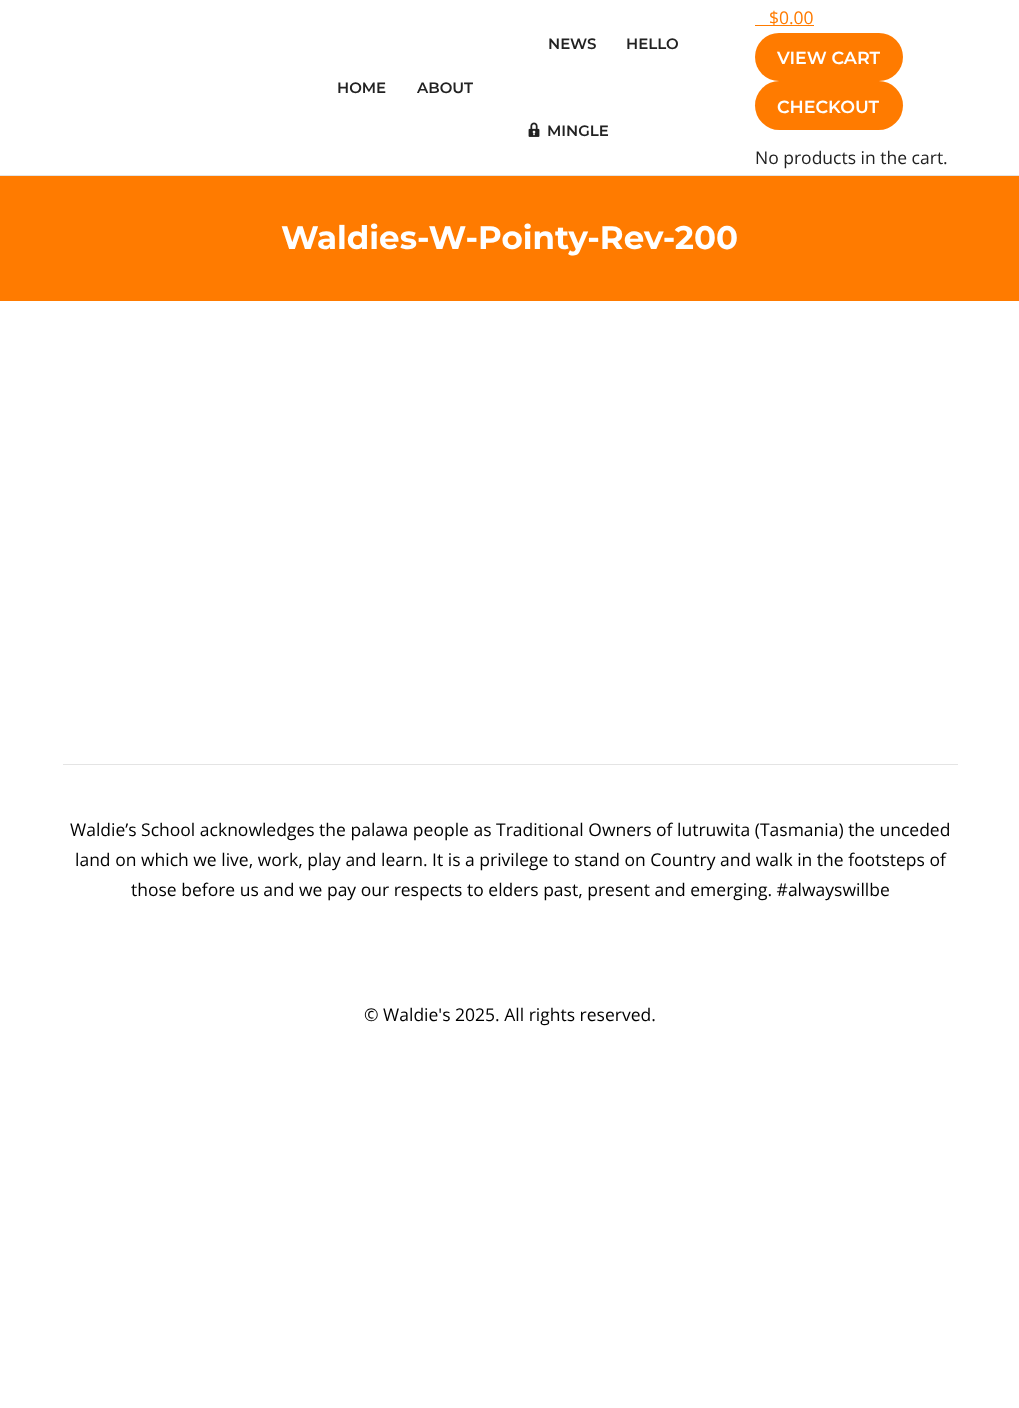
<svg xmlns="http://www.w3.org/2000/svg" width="1019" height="1408">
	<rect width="100%" height="100%" fill="#FFFFFF" />
	<rect x="0" y="175" width="1019" height="1" fill="#E4E4E4" />
	<g font-family="Montserrat" font-size="15" font-weight="600" fill="#222222">
		<text x="337" y="93">HOME</text>
		<text x="417" y="93">ABOUT</text>
		<text x="548" y="49">NEWS</text>
		<text x="626" y="49">HELLO</text>
	</g>
	<image x="528" y="122" width="12" height="15" href="assets/img1.png" />
	<text x="547" y="136" font-family="Montserrat" font-size="15" font-weight="600" fill="#222222">MINGLE</text>
	<text x="769" y="24" font-family="Open Sans" font-size="17.5" fill="#FF7B00">$0.00</text>
	<rect x="755" y="25" width="59" height="1" fill="#FF7B00" />
	<rect x="755" y="33" width="148" height="48" rx="24" fill="#FF7B00" />
	<text x="777" y="64" font-family="Montserrat" font-size="17.5" font-weight="600" fill="#FFFFFF">VIEW CART</text>
	<rect x="755" y="81" width="148" height="49" rx="24.5" fill="#FF7B00" />
	<text x="777" y="113" font-family="Montserrat" font-size="17.5" font-weight="600" fill="#FFFFFF">CHECKOUT</text>
	<text x="755" y="164" font-family="Open Sans" font-size="17.5" fill="#222222">No products in the cart.</text>
	<rect x="0" y="176" width="1019" height="125" fill="#FF7B00" />
	<text x="281" y="249" font-family="Montserrat" font-size="32.5" font-weight="700" fill="#FFFFFF">Waldies-W-Pointy-Rev-200</text>
	<rect x="63" y="764" width="895" height="1" fill="#E4E4E4" />
	<g font-family="Open Sans" font-size="17.5" fill="#000000">
		<text x="70" y="836">Waldie’s School acknowledges the palawa people as Traditional Owners of lutruwita (Tasmania) the unceded</text>
		<text x="75" y="866">land on which we live, work, play and learn. It is a privilege to stand on Country and walk in the footsteps of</text>
		<text x="131" y="896">those before us and we pay our respects to elders past, present and emerging. #alwayswillbe</text>
		<text x="364" y="1021">© Waldie's 2025. All rights reserved.</text>
	</g>
</svg>
